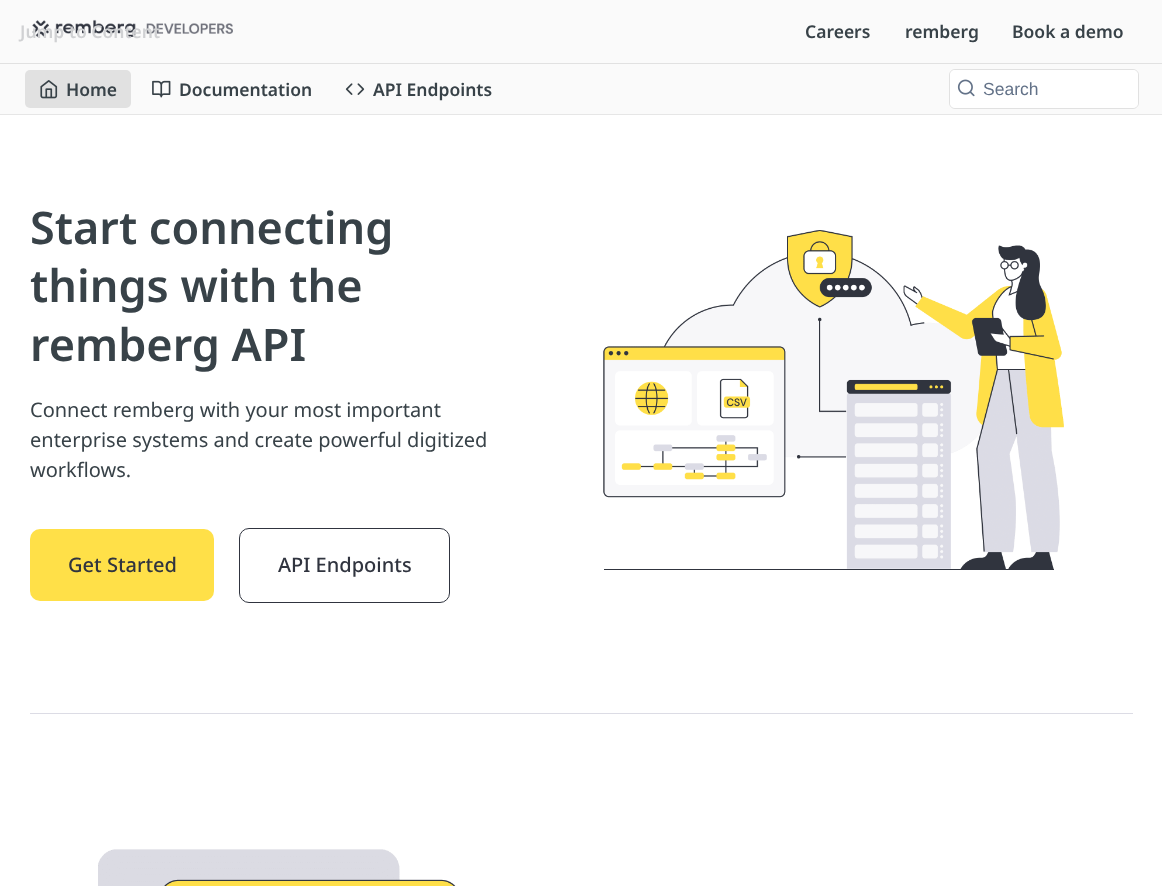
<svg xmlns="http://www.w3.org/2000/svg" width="1162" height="886">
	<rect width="100%" height="100%" fill="#FFFFFF" />
	<path d="M0 114V115H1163V1H1162V114Z" fill="#E6E6E6" />
	<rect x="0" y="0" width="1162" height="114" fill="#FAFAFA" />
	<rect x="0" y="63" width="1162" height="1" fill="#E1E1E1" />
	<image x="32" y="19" width="201" height="18" href="assets/img1.png" />
	<g font-family="Noto Sans" font-size="17.5" font-weight="600" fill="#384248">
		<text x="805" y="38">Careers</text>
		<text x="905" y="38">remberg</text>
		<text x="1012" y="38">Book a demo</text>
	</g>
	<text x="20" y="38" font-family="Noto Sans" font-size="17.5" font-weight="600" fill="#D0D1D3">Jump to Content</text>
	<rect x="25" y="70" width="106" height="38" rx="5" fill="#E1E1E1" />
	<image x="40" y="80" width="18" height="19" href="assets/img2.png" />
	<text x="66" y="96" font-family="Noto Sans" font-size="17.5" font-weight="600" fill="#384248">Home</text>
	<image x="152" y="80" width="19" height="18" href="assets/img3.png" />
	<text x="179" y="96" font-family="Noto Sans" font-size="17.5" font-weight="600" fill="#384248">Documentation</text>
	<image x="345" y="83" width="20" height="12" href="assets/img4.png" />
	<text x="373" y="96" font-family="Noto Sans" font-size="17.5" font-weight="600" fill="#384248">API Endpoints</text>
	<rect x="949.5" y="69.5" width="189" height="39" rx="5.5" fill="none" stroke="#E1E1E1" />
	<rect x="950" y="70" width="188" height="38" rx="5" fill="#FFFFFF" />
	<image x="957" y="79" width="18" height="18" href="assets/img5.png" />
	<text x="983" y="95" font-family="Liberation Sans" font-size="17.5" fill="#637288">Search</text>
	<g font-family="Noto Sans" font-size="45" font-weight="600" fill="#384248">
		<text x="30" y="244">Start connecting</text>
		<text x="30" y="302">things with the</text>
		<text x="30" y="361">remberg API</text>
	</g>
	<g font-family="Noto Sans" font-size="20" fill="#384248">
		<text x="30" y="417">Connect remberg with your most important</text>
		<text x="30" y="447">enterprise systems and create powerful digitized</text>
		<text x="30" y="477">workflows.</text>
	</g>
	<rect x="30" y="529" width="184" height="72" rx="10" fill="#FFE048" />
	<text x="68" y="572" font-family="Noto Sans" font-size="20" font-weight="500" fill="#30343F">Get Started</text>
	<rect x="239.5" y="528.5" width="210" height="74" rx="9.5" fill="none" stroke="#30343F" />
	<text x="278" y="572" font-family="Noto Sans" font-size="20" font-weight="500" fill="#30343F">API Endpoints</text>
	<image x="603" y="230" width="461" height="340" href="assets/img6.png" />
	<rect x="30" y="713" width="1103" height="1" fill="#DCDCE5" />
	<image x="98" y="849" width="358" height="37" href="assets/img7.png" />
</svg>
